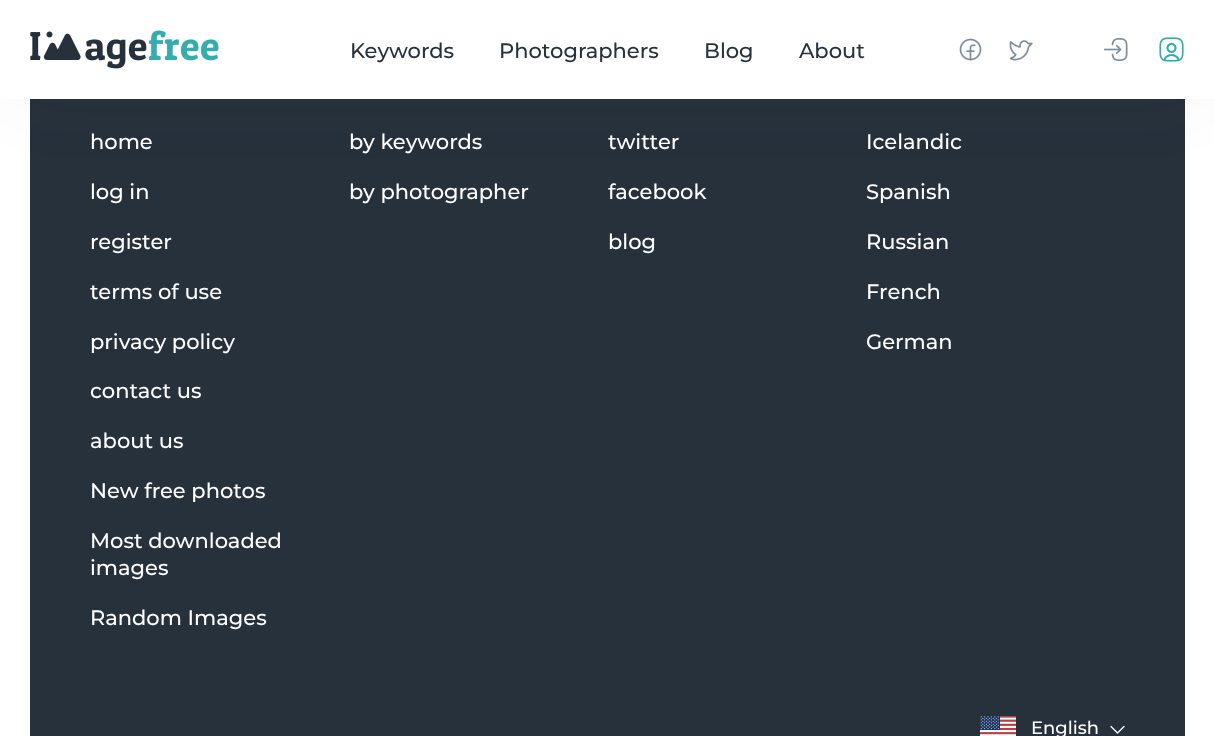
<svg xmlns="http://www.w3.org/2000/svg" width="1214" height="736">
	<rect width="100%" height="100%" fill="#FFFFFF" />
	<rect x="30" y="99" width="1155" height="637" fill="#27313C" />
	<rect x="15" y="15" width="1185" height="69" fill="#27313C" fill-opacity="0.12" filter="blur(37.5px)" />
	<rect x="0" y="0" width="1214" height="99" fill="#FFFFFF" />
	<image x="30" y="30" width="189" height="39" href="assets/img1.png" />
	<g font-family="Montserrat" font-size="21" font-weight="500" fill="#27313C">
		<text x="350" y="58">Keywords</text>
		<text x="499" y="58">Photographers</text>
		<text x="704" y="58">Blog</text>
		<text x="799" y="58">About</text>
	</g>
	<image x="959" y="38" width="23" height="23" href="assets/img2.png" />
	<image x="1009" y="40" width="24" height="21" href="assets/img3.png" />
	<image x="1103" y="38" width="25" height="24" href="assets/img4.png" />
	<image x="1159" y="37" width="25" height="25" href="assets/img5.png" />
	<g font-family="Montserrat" font-size="21" font-weight="500" fill="#FFFFFF">
		<text x="90" y="149">home</text>
		<text x="90" y="199">log in</text>
		<text x="90" y="249">register</text>
		<text x="90" y="299">terms of use</text>
		<text x="90" y="349">privacy policy</text>
		<text x="90" y="398">contact us</text>
		<text x="90" y="448">about us</text>
		<text x="90" y="498">New free photos</text>
		<text x="90" y="548">Most downloaded</text>
		<text x="90" y="575">images</text>
		<text x="90" y="625">Random Images</text>
		<text x="349" y="149">by keywords</text>
		<text x="349" y="199">by photographer</text>
		<text x="608" y="149">twitter</text>
		<text x="608" y="199">facebook</text>
		<text x="608" y="249">blog</text>
		<text x="866" y="149">Icelandic</text>
		<text x="866" y="199">Spanish</text>
		<text x="866" y="249">Russian</text>
		<text x="866" y="299">French</text>
		<text x="866" y="349">German</text>
	</g>
	<image x="980" y="716" width="36" height="20" href="assets/img6.png" />
	<text x="1031" y="734" font-family="Montserrat" font-size="18" font-weight="500" fill="#FFFFFF">English</text>
	<path d="M1124 726.5L1117.5 733L1111 726.5" fill="none" stroke="#FFFFFF" stroke-width="1.3" stroke-linecap="round" stroke-linejoin="round" />
</svg>
